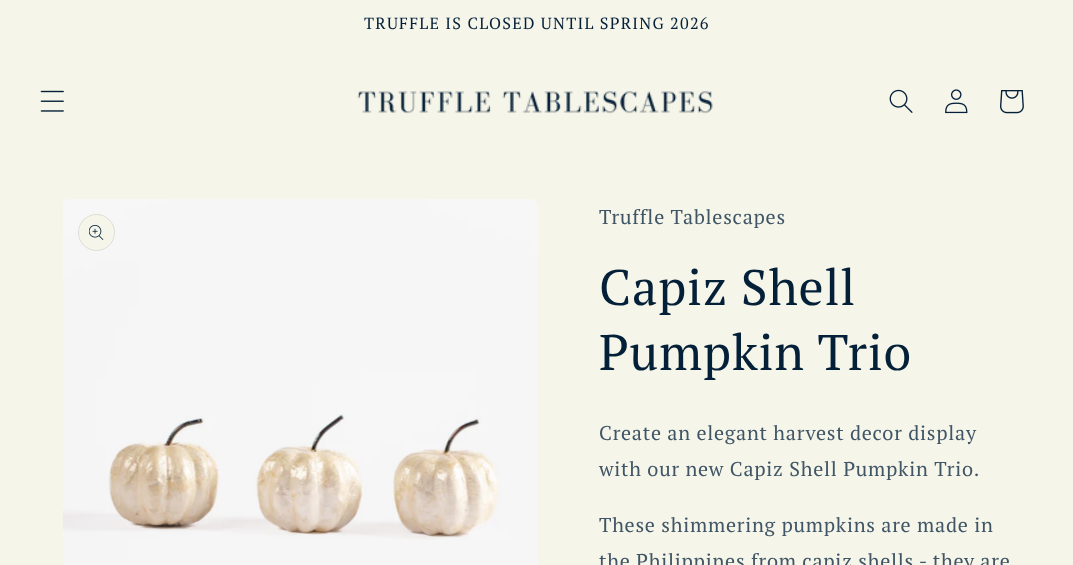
<svg xmlns="http://www.w3.org/2000/svg" width="1073" height="565">
	<rect width="100%" height="100%" fill="#F5F5E9" />
	<text x="364" y="29" font-family="PT Serif" font-size="16.25" letter-spacing="1.25" fill="#042039">TRUFFLE IS CLOSED UNTIL SPRING 2026</text>
	<image x="40" y="90" width="24" height="22" href="assets/img1.png" />
	<image x="357" y="91" width="356" height="23" href="assets/img2.png" />
	<image x="889" y="89" width="24" height="24" href="assets/img3.png" />
	<image x="945" y="89" width="23" height="25" href="assets/img4.png" />
	<image x="1000" y="90" width="24" height="24" href="assets/img5.png" />
	<image x="63" y="199" width="475" height="366" href="assets/img6.png" />
	<circle cx="96.5" cy="232.5" r="18.5" fill="#F5F5E9" />
	<circle cx="96.5" cy="232.5" r="18" fill="none" stroke="#042039" stroke-opacity="0.1" />
	<image x="89" y="225" width="15" height="15" href="assets/img7.png" />
	<text x="599" y="224" font-family="PT Serif" font-size="20" letter-spacing="0.75" fill="#405565">Truffle Tablescapes</text>
	<g font-family="PT Serif" font-size="50" letter-spacing="0.75" fill="#042039">
		<text x="599" y="305">Capiz Shell</text>
		<text x="599" y="370">Pumpkin Trio</text>
	</g>
	<g font-family="PT Serif" font-size="20" letter-spacing="0.75" fill="#405565">
		<text x="599" y="440">Create an elegant harvest decor display</text>
		<text x="599" y="476">with our new Capiz Shell Pumpkin Trio.</text>
		<text x="599" y="532">These shimmering pumpkins are made in</text>
		<text x="599" y="568">the Philippines from capiz shells - they are</text>
	</g>
</svg>
